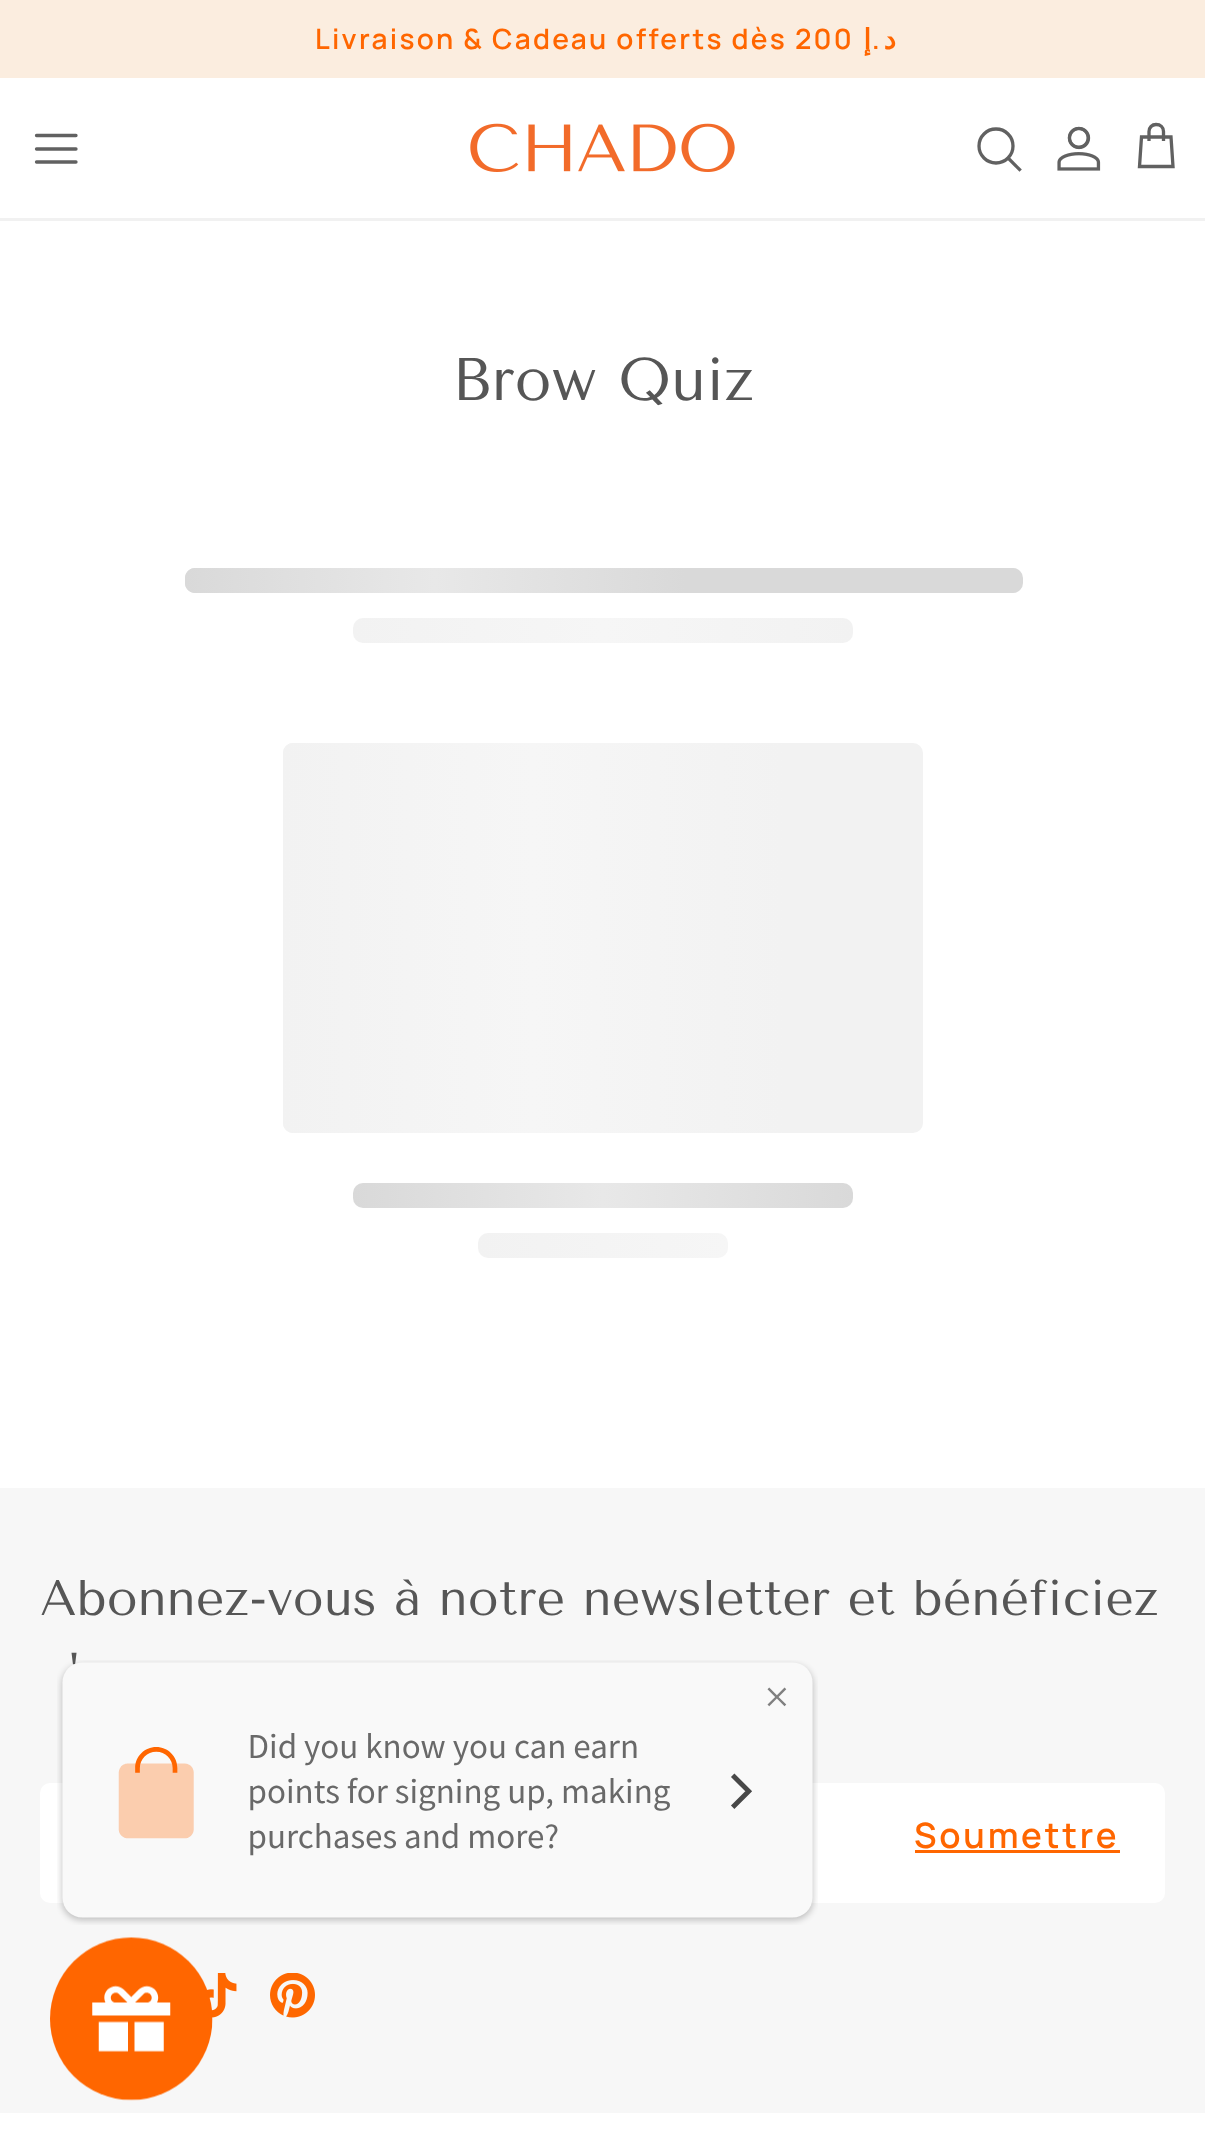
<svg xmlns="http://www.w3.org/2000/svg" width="1205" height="2148">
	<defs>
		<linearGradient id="g1" gradientUnits="userSpaceOnUse" x1="185" y1="580" x2="685" y2="580"><stop offset="0" stop-color="#D9D9D9" /><stop offset="0.5" stop-color="#E8E8E8" /><stop offset="1" stop-color="#D9D9D9" /></linearGradient>
		<linearGradient id="g2" gradientUnits="userSpaceOnUse" x1="353" y1="630" x2="853" y2="630"><stop offset="0" stop-color="#F2F2F2" /><stop offset="0.5" stop-color="#F6F6F6" /><stop offset="1" stop-color="#F2F2F2" /></linearGradient>
		<linearGradient id="g3" gradientUnits="userSpaceOnUse" x1="283" y1="938" x2="783" y2="938"><stop offset="0" stop-color="#F2F2F2" /><stop offset="0.5" stop-color="#F6F6F6" /><stop offset="1" stop-color="#F2F2F2" /></linearGradient>
		<linearGradient id="g4" gradientUnits="userSpaceOnUse" x1="353" y1="1195" x2="853" y2="1195"><stop offset="0" stop-color="#D9D9D9" /><stop offset="0.5" stop-color="#E8E8E8" /><stop offset="1" stop-color="#D9D9D9" /></linearGradient>
		<linearGradient id="g5" gradientUnits="userSpaceOnUse" x1="478" y1="1245" x2="978" y2="1245"><stop offset="0" stop-color="#F2F2F2" /><stop offset="0.5" stop-color="#F6F6F6" /><stop offset="1" stop-color="#F2F2F2" /></linearGradient>
	</defs>
	<rect width="100%" height="100%" fill="#FFFFFF" />
	<rect x="0" y="0" width="1205" height="78" fill="#FBEDDF" />
	<text x="315" y="49" font-family="Manrope" font-size="28" font-weight="600" letter-spacing="2.25" fill="#FF6600">Livraison &amp; Cadeau offerts dès 200</text>
	<text x="871" y="49" font-family="DejaVu Sans" font-size="28" font-weight="700" letter-spacing="2.25" direction="rtl" fill="#FF6600">إ</text>
	<text x="882" y="49" font-family="Manrope" font-size="28" font-weight="600" letter-spacing="2.25" direction="rtl" fill="#FF6600">.</text>
	<text x="896" y="49" font-family="DejaVu Sans" font-size="28" font-weight="700" letter-spacing="2.25" direction="rtl" fill="#FF6600">د</text>
	<rect x="0" y="218" width="1205" height="3" fill="#F1F1F1" />
	<path d="M36.5 149H76M36.5 135.5H76M36.5 162H76" fill="none" stroke="#616161" stroke-width="3.3" stroke-linecap="round" stroke-linejoin="round" />
	<image x="470" y="123" width="265" height="49" href="assets/img1.png" />
	<circle cx="996" cy="146" r="17" fill="none" stroke="#616161" stroke-width="3.3" />
	<path d="M1009.5 159.5L1019.5 169.5" fill="none" stroke="#616161" stroke-width="3.3" stroke-linecap="square" />
	<image x="1057" y="126" width="44" height="45" href="assets/img2.png" />
	<path d="M1163.5 141V131.5C1163.5 127.5 1160.5 124.5 1156 124.5C1152 124.5 1149 127.5 1149 131.5V141M1141.5 137H1171L1173 166.5H1139.5Z" fill="none" stroke="#616161" stroke-width="3.3" />
	<text x="452" y="400" font-family="Tenor Sans" font-size="60" fill="#565656">Brow Quiz</text>
	<rect x="185" y="568" width="838" height="25" rx="10" fill="#D9D9D9" />
	<path d="M195 568H685V593H195C189.5 593 185 588.5 185 583V578C185 572.5 189.5 568 195 568Z" fill="url(#g1)" />
	<rect x="353" y="618" width="500" height="25" rx="10" fill="url(#g2)" />
	<rect x="283" y="743" width="640" height="390" rx="10" fill="#F2F2F2" />
	<path d="M293 743H783V1133H293C287.5 1133 283 1128.5 283 1123V753C283 747.5 287.5 743 293 743Z" fill="url(#g3)" />
	<rect x="353" y="1183" width="500" height="25" rx="10" fill="url(#g4)" />
	<rect x="478" y="1233" width="250" height="25" rx="10" fill="url(#g5)" />
	<rect x="0" y="1488" width="1205" height="625" fill="#F7F7F7" />
	<g font-family="Tenor Sans" font-size="50" fill="#565656">
		<text x="40" y="1615">Abonnez-vous à notre newsletter et bénéficiez</text>
		<text x="70" y="1690">'</text>
	</g>
	<rect x="40" y="1783" width="1125" height="120" rx="10" fill="#FFFFFF" />
	<text x="914" y="1848" font-family="Manrope" font-size="35" font-weight="600" letter-spacing="2.75" fill="#FF6600">Soumettre</text>
	<rect x="915" y="1850" width="205" height="3" fill="#FF6600" />
	<image x="207" y="1973" width="30" height="45" href="assets/img3.png" />
	<image x="270" y="1973" width="45" height="45" href="assets/img4.png" />
	<image x="57" y="1660" width="761" height="265" href="assets/img5.png" />
	<image x="50" y="1937" width="163" height="164" href="assets/img6.png" />
</svg>
